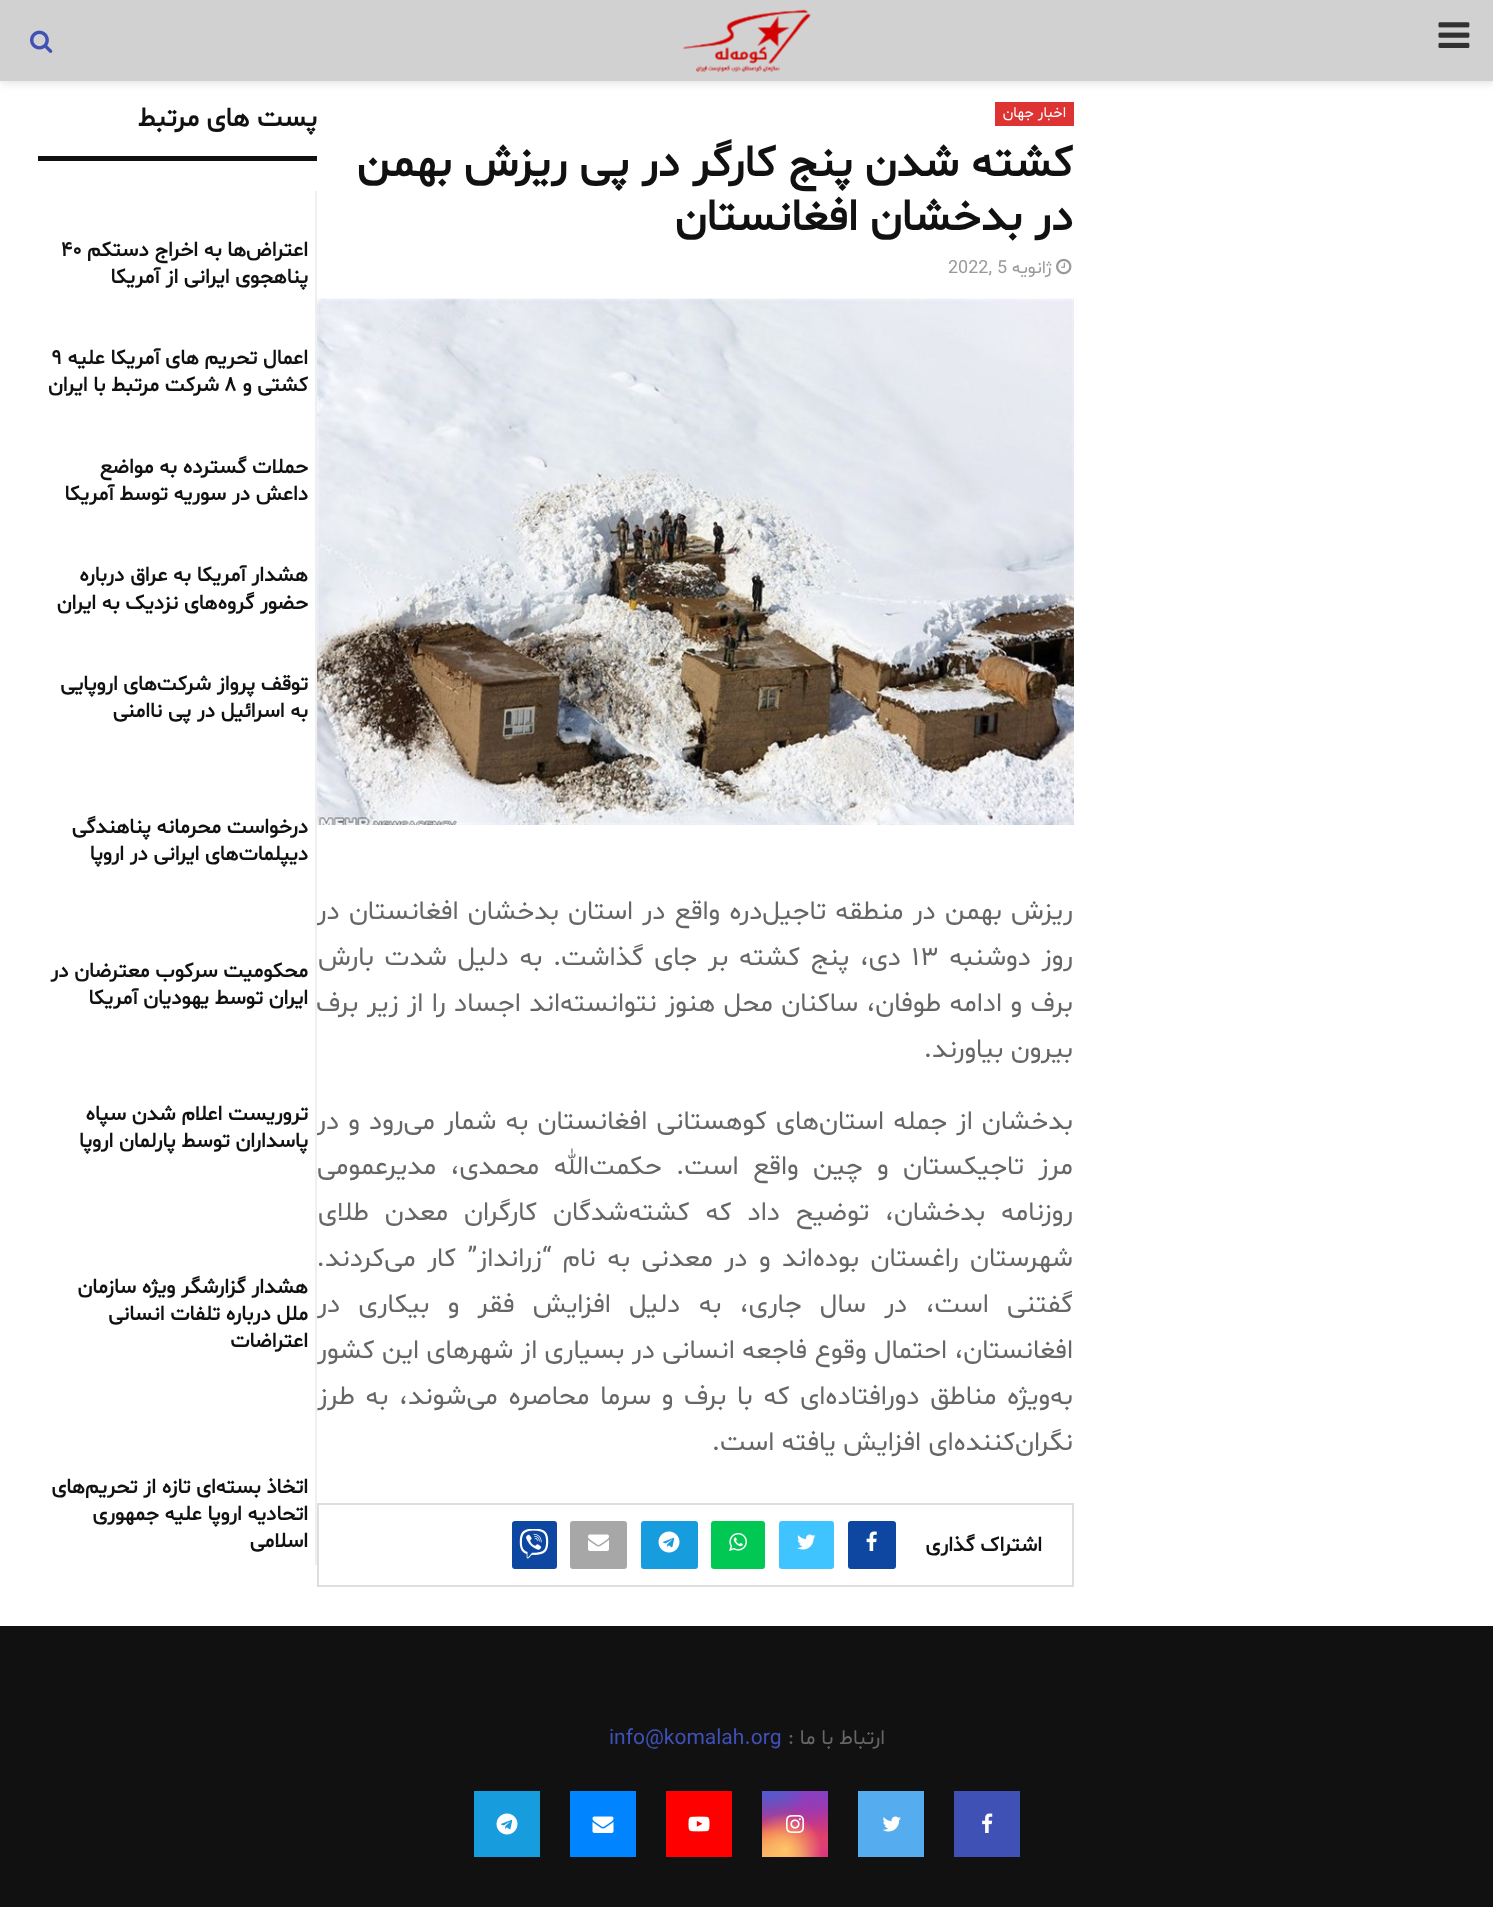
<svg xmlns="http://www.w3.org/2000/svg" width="1493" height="1907">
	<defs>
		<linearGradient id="g1" gradientUnits="userSpaceOnUse" x1="795" y1="1791" x2="795" y2="1857"><stop offset="0" stop-color="#6559CA" /><stop offset="0.3" stop-color="#BC318F" /><stop offset="0.5" stop-color="#E33F5F" /><stop offset="0.7" stop-color="#F77638" /><stop offset="1" stop-color="#FEC66D" /></linearGradient>
		<radialGradient id="g2" gradientUnits="userSpaceOnUse" cx="828" cy="1857" r="93"><stop offset="0" stop-color="#D9317A" /><stop offset="1" stop-color="#D9317A" stop-opacity="0" /></radialGradient>
		<radialGradient id="g3" gradientUnits="userSpaceOnUse" cx="0" cy="0" r="1" gradientTransform="matrix(56 0 0 112 802 1778)"><stop offset="0" stop-color="#893DC2" /><stop offset="0.5" stop-color="#893DC2" stop-opacity="0" /></radialGradient>
		<radialGradient id="g4" gradientUnits="userSpaceOnUse" cx="828" cy="1791" r="93"><stop offset="0" stop-color="#893DC2" /><stop offset="0.5" stop-color="#893DC2" stop-opacity="0" /></radialGradient>
		<radialGradient id="g5" gradientUnits="userSpaceOnUse" cx="0" cy="0" r="1" gradientTransform="matrix(75 0 0 140 775 1758)"><stop offset="0" stop-color="#5258CF" /><stop offset="0.5" stop-color="#5258CF" stop-opacity="0" /></radialGradient>
		<radialGradient id="g6" gradientUnits="userSpaceOnUse" cx="0" cy="0" r="1" gradientTransform="matrix(93 0 0 117 762 1775)"><stop offset="0" stop-color="#5258CF" /><stop offset="0.5" stop-color="#5258CF" stop-opacity="0" /></radialGradient>
		<radialGradient id="g7" gradientUnits="userSpaceOnUse" cx="762" cy="1883" r="114"><stop offset="0" stop-color="#FEC564" /><stop offset="0.5" stop-color="#FEC564" stop-opacity="0" /></radialGradient>
		<radialGradient id="g8" gradientUnits="userSpaceOnUse" cx="785" cy="1850" r="73"><stop offset="0" stop-color="#FEC564" /><stop offset="0.5" stop-color="#FEC564" stop-opacity="0" /></radialGradient>
	</defs>
	<rect width="100%" height="100%" fill="#FFFFFF" />
	<rect x="0" y="2" width="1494" height="81" fill="#BEBEBE" fill-opacity="0.46" filter="blur(4px)" />
	<rect x="0" y="0" width="1493" height="81" fill="#D1D1D1" />
	<image x="1438" y="22" width="32" height="26" href="assets/img1.png" />
	<image x="683" y="9" width="128" height="63" href="assets/img2.png" />
	<image x="30" y="30" width="23" height="23" href="assets/img3.png" />
	<rect x="995" y="102" width="79" height="24" fill="#DD3333" />
	<text x="1066" y="117" font-family="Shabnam" font-size="15" direction="rtl" fill="#FFFFFF">اخبار جهان</text>
	<g font-family="Shabnam" font-size="45" font-weight="700" direction="rtl" fill="#111111">
		<text x="1073" y="176">کشته شدن پنج کارگر در پی ریزش بهمن</text>
		<text x="1073" y="230">در بدخشان افغانستان</text>
	</g>
	<image x="1056" y="258" width="16" height="17" href="assets/img4.png" />
	<text x="1052" y="273" font-family="Shabnam" font-size="18" direction="rtl" fill="#999999">ژانویه</text>
	<text x="948" y="273" font-family="Shabnam" font-size="18" fill="#999999">2022, 5</text>
	<image x="317" y="298" width="757" height="527" href="assets/img5.png" />
	<g font-family="Shabnam" font-size="27" direction="rtl" fill="#666666">
		<text x="1073" y="919" word-spacing="1.75">ریزش بهمن در منطقه تاجیل‌دره واقع در استان بدخشان افغانستان در</text>
		<text x="1073" y="965" word-spacing="3.25">روز دوشنبه</text>
	</g>
	<text x="911" y="965" font-family="Shabnam" font-size="27" fill="#666666">۱۳</text>
	<g font-family="Shabnam" font-size="27" direction="rtl" fill="#666666">
		<text x="901" y="965" word-spacing="3.25">دی، پنج کشته بر جای گذاشت. به دلیل شدت بارش</text>
		<text x="1073" y="1011" word-spacing="1">برف و ادامه طوفان، ساکنان محل هنوز نتوانسته‌اند اجساد را از زیر برف</text>
		<text x="1073" y="1057">بیرون بیاورند.</text>
		<text x="1073" y="1129" word-spacing="1.75">بدخشان از جمله استان‌های کوهستانی افغانستان به شمار می‌رود و در</text>
		<text x="1073" y="1174" word-spacing="7">مرز تاجیکستان و چین واقع است. حکمت‌الله محمدی، مدیرعمومی</text>
		<text x="1073" y="1220" word-spacing="8.5">روزنامه بدخشان، توضیح داد که کشته‌شدگان کارگران معدن طلای</text>
		<text x="1073" y="1266" word-spacing="4">شهرستان راغستان بوده‌اند و در معدنی به نام “زرانداز” کار می‌کردند.</text>
		<text x="1073" y="1312" word-spacing="10.9">گفتنی است، در سال جاری، به دلیل افزایش فقر و بیکاری در</text>
		<text x="1073" y="1358">افغانستان، احتمال وقوع فاجعه انسانی در بسیاری از شهرهای این کشور</text>
		<text x="1073" y="1404" word-spacing="3.25">به‌ویژه مناطق دورافتاده‌ای که با برف و سرما محاصره می‌شوند، به طرز</text>
		<text x="1073" y="1450">نگران‌کنند‌ه‌ای افزایش یافته است.</text>
	</g>
	<rect x="318" y="1504" width="755" height="82" fill="none" stroke="#DEDEDE" stroke-width="2" />
	<text x="1042" y="1551" font-family="Shabnam" font-size="21" font-weight="700" direction="rtl" fill="#111111">اشتراک گذاری</text>
	<rect x="848" y="1521" width="48" height="48" rx="3" fill="#0D47A1" />
	<image x="866" y="1531" width="11" height="20" href="assets/img6.png" />
	<rect x="779" y="1521" width="55" height="48" rx="3" fill="#40C4FF" />
	<image x="797" y="1534" width="19" height="16" href="assets/img7.png" />
	<rect x="711" y="1521" width="54" height="48" rx="3" fill="#00C853" />
	<image x="729" y="1532" width="18" height="19" href="assets/img8.png" />
	<rect x="641" y="1521" width="57" height="48" rx="3" fill="#179CDE" />
	<image x="658" y="1531" width="22" height="22" href="assets/img9.png" />
	<rect x="570" y="1521" width="57" height="48" rx="3" fill="#A7A7A7" />
	<image x="588" y="1534" width="21" height="17" href="assets/img10.png" />
	<rect x="512" y="1521" width="45" height="48" rx="3" fill="#0D47A1" />
	<image x="519" y="1529" width="30" height="30" href="assets/img11.png" />
	<rect x="38" y="156" width="279" height="5" fill="#111111" />
	<text x="317" y="126" font-family="Shabnam" font-size="27" font-weight="700" direction="rtl" fill="#111111">پست های مرتبط</text>
	<rect x="315" y="191" width="2" height="1374" fill="#EFEFEF" />
	<text x="308" y="256" font-family="Shabnam" font-size="21" font-weight="700" direction="rtl" fill="#111111">اعتراض‌ها به اخراج دستکم</text>
	<text x="61" y="256" font-family="Shabnam" font-size="21" font-weight="700" fill="#111111">۴۰</text>
	<g font-family="Shabnam" font-size="21" font-weight="700" direction="rtl" fill="#111111">
		<text x="308" y="283">پناهجوی ایرانی از آمریکا</text>
		<text x="308" y="364">اعمال تحریم های آمریکا علیه</text>
	</g>
	<text x="51" y="364" font-family="Shabnam" font-size="21" font-weight="700" fill="#111111">۹</text>
	<text x="308" y="391" font-family="Shabnam" font-size="21" font-weight="700" direction="rtl" fill="#111111">کشتی و</text>
	<text x="224" y="391" font-family="Shabnam" font-size="21" font-weight="700" fill="#111111">۸</text>
	<g font-family="Shabnam" font-size="21" font-weight="700" direction="rtl" fill="#111111">
		<text x="219" y="391">شرکت مرتبط با ایران</text>
		<text x="308" y="473">حملات گسترده به مواضع</text>
		<text x="308" y="500">داعش در سوریه توسط آمریکا</text>
		<text x="308" y="581">هشدار آمریکا به عراق درباره</text>
		<text x="308" y="609">حضور گروه‌های نزدیک به ایران</text>
		<text x="308" y="690">توقف پرواز شرکت‌های اروپایی</text>
		<text x="308" y="717">به اسرائیل در پی ناامنی</text>
		<text x="308" y="833">درخواست محرمانه پناهندگی</text>
		<text x="308" y="860">دیپلمات‌های ایرانی در اروپا</text>
		<text x="308" y="977">محکومیت سرکوب معترضان در</text>
		<text x="308" y="1004">ایران توسط یهودیان آمریکا</text>
		<text x="308" y="1120">تروریست اعلام شدن سپاه</text>
		<text x="308" y="1147">پاسداران توسط پارلمان اروپا</text>
		<text x="308" y="1293">هشدار گزارشگر ویژه سازمان</text>
		<text x="308" y="1320">ملل درباره تلفات انسانی</text>
		<text x="308" y="1347">اعتراضات</text>
		<text x="308" y="1493">اتخاذ بسته‌ای تازه از تحریم‌های</text>
		<text x="308" y="1520">اتحادیه اروپا علیه جمهوری</text>
		<text x="308" y="1547">اسلامی</text>
	</g>
	<rect x="0" y="1626" width="1493" height="281" fill="#111111" />
	<text x="885" y="1744" font-family="Shabnam" font-size="21" direction="rtl" fill="#666666">ارتباط با ما :</text>
	<text x="609" y="1744" font-family="Shabnam" font-size="21" fill="#3F51B5">info@komalah.org</text>
	<rect x="954" y="1791" width="66" height="66" fill="#3F51B5" />
	<image x="982" y="1813" width="11" height="20" href="assets/img12.png" />
	<rect x="858" y="1791" width="66" height="66" fill="#55ACEE" />
	<image x="882" y="1816" width="19" height="16" href="assets/img13.png" />
	<rect x="762" y="1791" width="66" height="66" fill="url(#g1)" />
	<rect x="762" y="1791" width="66" height="66" fill="url(#g2)" />
	<rect x="778" y="1791" width="48" height="42" fill="url(#g3)" />
	<rect x="787" y="1791" width="41" height="45" fill="url(#g4)" />
	<rect x="762" y="1791" width="44" height="35" fill="url(#g5)" />
	<rect x="762" y="1791" width="42" height="41" fill="url(#g6)" />
	<rect x="762" y="1827" width="49" height="30" fill="url(#g7)" />
	<rect x="762" y="1814" width="59" height="43" fill="url(#g8)" />
	<image x="786" y="1815" width="18" height="18" href="assets/img14.png" />
	<rect x="666" y="1791" width="66" height="66" fill="#FF0000" />
	<image x="688" y="1816" width="22" height="16" href="assets/img15.png" />
	<rect x="570" y="1791" width="66" height="66" fill="#0084FF" />
	<image x="592" y="1816" width="22" height="17" href="assets/img16.png" />
	<rect x="474" y="1791" width="66" height="66" fill="#179CDE" />
	<image x="496" y="1813" width="22" height="22" href="assets/img9.png" />
</svg>
